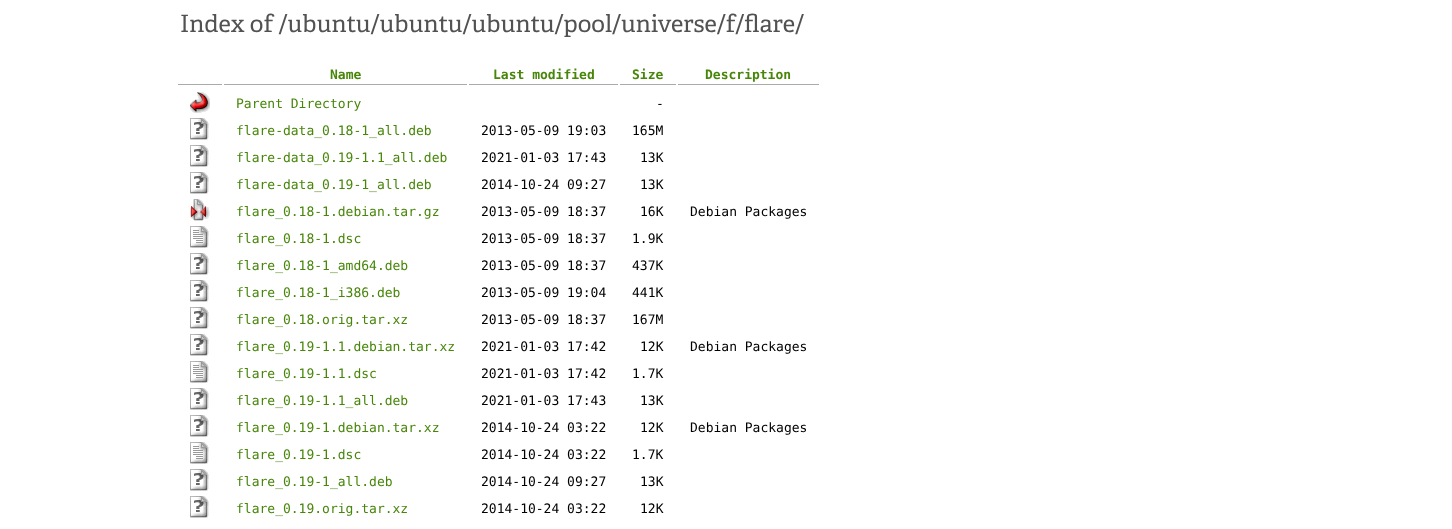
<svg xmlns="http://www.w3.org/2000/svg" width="1452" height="529">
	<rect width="100%" height="100%" fill="#FFFFFF" />
	<text x="180" y="32" font-family="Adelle" font-size="24" fill="#525252">Index of /ubuntu/ubuntu/ubuntu/pool/universe/f/flare/</text>
	<rect x="224" y="84" width="243" height="1" fill="#AAAAAA" />
	<text x="330" y="79" font-family="DejaVu Sans Mono" font-size="13" font-weight="700" fill="#478609">Name</text>
	<rect x="469" y="84" width="149" height="1" fill="#AAAAAA" />
	<text x="493" y="79" font-family="DejaVu Sans Mono" font-size="13" font-weight="700" fill="#478609">Last modified</text>
	<rect x="620" y="84" width="56" height="1" fill="#AAAAAA" />
	<text x="632" y="79" font-family="DejaVu Sans Mono" font-size="13" font-weight="700" fill="#478609">Size</text>
	<rect x="678" y="84" width="141" height="1" fill="#AAAAAA" />
	<text x="705" y="79" font-family="DejaVu Sans Mono" font-size="13" font-weight="700" fill="#478609">Description</text>
	<rect x="178" y="84" width="44" height="1" fill="#AAAAAA" />
	<image x="190" y="92" width="20" height="21" href="assets/img1.png" />
	<text x="236" y="108" font-family="DejaVu Sans Mono" font-size="13" fill="#478609">Parent Directory</text>
	<text x="656" y="108" font-family="DejaVu Sans Mono" font-size="13" fill="#000000">-</text>
	<image x="190" y="118" width="19" height="22" href="assets/img2.png" />
	<text x="236" y="135" font-family="DejaVu Sans Mono" font-size="13" fill="#478609">flare-data_0.18-1_all.deb</text>
	<g font-family="DejaVu Sans Mono" font-size="13" fill="#000000">
		<text x="481" y="135">2013-05-09 19:03</text>
		<text x="632" y="135">165M</text>
	</g>
	<image x="190" y="145" width="19" height="22" href="assets/img2.png" />
	<text x="236" y="162" font-family="DejaVu Sans Mono" font-size="13" fill="#478609">flare-data_0.19-1.1_all.deb</text>
	<g font-family="DejaVu Sans Mono" font-size="13" fill="#000000">
		<text x="481" y="162">2021-01-03 17:43</text>
		<text x="640" y="162">13K</text>
	</g>
	<image x="190" y="172" width="19" height="22" href="assets/img2.png" />
	<text x="236" y="189" font-family="DejaVu Sans Mono" font-size="13" fill="#478609">flare-data_0.19-1_all.deb</text>
	<g font-family="DejaVu Sans Mono" font-size="13" fill="#000000">
		<text x="481" y="189">2014-10-24 09:27</text>
		<text x="640" y="189">13K</text>
	</g>
	<image x="190" y="199" width="20" height="22" href="assets/img3.png" />
	<text x="236" y="216" font-family="DejaVu Sans Mono" font-size="13" fill="#478609">flare_0.18-1.debian.tar.gz</text>
	<g font-family="DejaVu Sans Mono" font-size="13" fill="#000000">
		<text x="481" y="216">2013-05-09 18:37</text>
		<text x="640" y="216">16K</text>
		<text x="690" y="216">Debian Packages</text>
	</g>
	<image x="190" y="226" width="19" height="22" href="assets/img4.png" />
	<text x="236" y="243" font-family="DejaVu Sans Mono" font-size="13" fill="#478609">flare_0.18-1.dsc</text>
	<g font-family="DejaVu Sans Mono" font-size="13" fill="#000000">
		<text x="481" y="243">2013-05-09 18:37</text>
		<text x="632" y="243">1.9K</text>
	</g>
	<image x="190" y="253" width="19" height="22" href="assets/img2.png" />
	<text x="236" y="270" font-family="DejaVu Sans Mono" font-size="13" fill="#478609">flare_0.18-1_amd64.deb</text>
	<g font-family="DejaVu Sans Mono" font-size="13" fill="#000000">
		<text x="481" y="270">2013-05-09 18:37</text>
		<text x="632" y="270">437K</text>
	</g>
	<image x="190" y="280" width="19" height="22" href="assets/img2.png" />
	<text x="236" y="297" font-family="DejaVu Sans Mono" font-size="13" fill="#478609">flare_0.18-1_i386.deb</text>
	<g font-family="DejaVu Sans Mono" font-size="13" fill="#000000">
		<text x="481" y="297">2013-05-09 19:04</text>
		<text x="632" y="297">441K</text>
	</g>
	<image x="190" y="307" width="19" height="22" href="assets/img2.png" />
	<text x="236" y="324" font-family="DejaVu Sans Mono" font-size="13" fill="#478609">flare_0.18.orig.tar.xz</text>
	<g font-family="DejaVu Sans Mono" font-size="13" fill="#000000">
		<text x="481" y="324">2013-05-09 18:37</text>
		<text x="632" y="324">167M</text>
	</g>
	<image x="190" y="334" width="19" height="22" href="assets/img2.png" />
	<text x="236" y="351" font-family="DejaVu Sans Mono" font-size="13" fill="#478609">flare_0.19-1.1.debian.tar.xz</text>
	<g font-family="DejaVu Sans Mono" font-size="13" fill="#000000">
		<text x="481" y="351">2021-01-03 17:42</text>
		<text x="640" y="351">12K</text>
		<text x="690" y="351">Debian Packages</text>
	</g>
	<image x="190" y="361" width="19" height="22" href="assets/img4.png" />
	<text x="236" y="378" font-family="DejaVu Sans Mono" font-size="13" fill="#478609">flare_0.19-1.1.dsc</text>
	<g font-family="DejaVu Sans Mono" font-size="13" fill="#000000">
		<text x="481" y="378">2021-01-03 17:42</text>
		<text x="632" y="378">1.7K</text>
	</g>
	<image x="190" y="388" width="19" height="22" href="assets/img2.png" />
	<text x="236" y="405" font-family="DejaVu Sans Mono" font-size="13" fill="#478609">flare_0.19-1.1_all.deb</text>
	<g font-family="DejaVu Sans Mono" font-size="13" fill="#000000">
		<text x="481" y="405">2021-01-03 17:43</text>
		<text x="640" y="405">13K</text>
	</g>
	<image x="190" y="415" width="19" height="22" href="assets/img2.png" />
	<text x="236" y="432" font-family="DejaVu Sans Mono" font-size="13" fill="#478609">flare_0.19-1.debian.tar.xz</text>
	<g font-family="DejaVu Sans Mono" font-size="13" fill="#000000">
		<text x="481" y="432">2014-10-24 03:22</text>
		<text x="640" y="432">12K</text>
		<text x="690" y="432">Debian Packages</text>
	</g>
	<image x="190" y="442" width="19" height="22" href="assets/img4.png" />
	<text x="236" y="459" font-family="DejaVu Sans Mono" font-size="13" fill="#478609">flare_0.19-1.dsc</text>
	<g font-family="DejaVu Sans Mono" font-size="13" fill="#000000">
		<text x="481" y="459">2014-10-24 03:22</text>
		<text x="632" y="459">1.7K</text>
	</g>
	<image x="190" y="469" width="19" height="22" href="assets/img2.png" />
	<text x="236" y="486" font-family="DejaVu Sans Mono" font-size="13" fill="#478609">flare_0.19-1_all.deb</text>
	<g font-family="DejaVu Sans Mono" font-size="13" fill="#000000">
		<text x="481" y="486">2014-10-24 09:27</text>
		<text x="640" y="486">13K</text>
	</g>
	<image x="190" y="496" width="19" height="22" href="assets/img2.png" />
	<text x="236" y="513" font-family="DejaVu Sans Mono" font-size="13" fill="#478609">flare_0.19.orig.tar.xz</text>
	<g font-family="DejaVu Sans Mono" font-size="13" fill="#000000">
		<text x="481" y="513">2014-10-24 03:22</text>
		<text x="640" y="513">12K</text>
	</g>
</svg>
